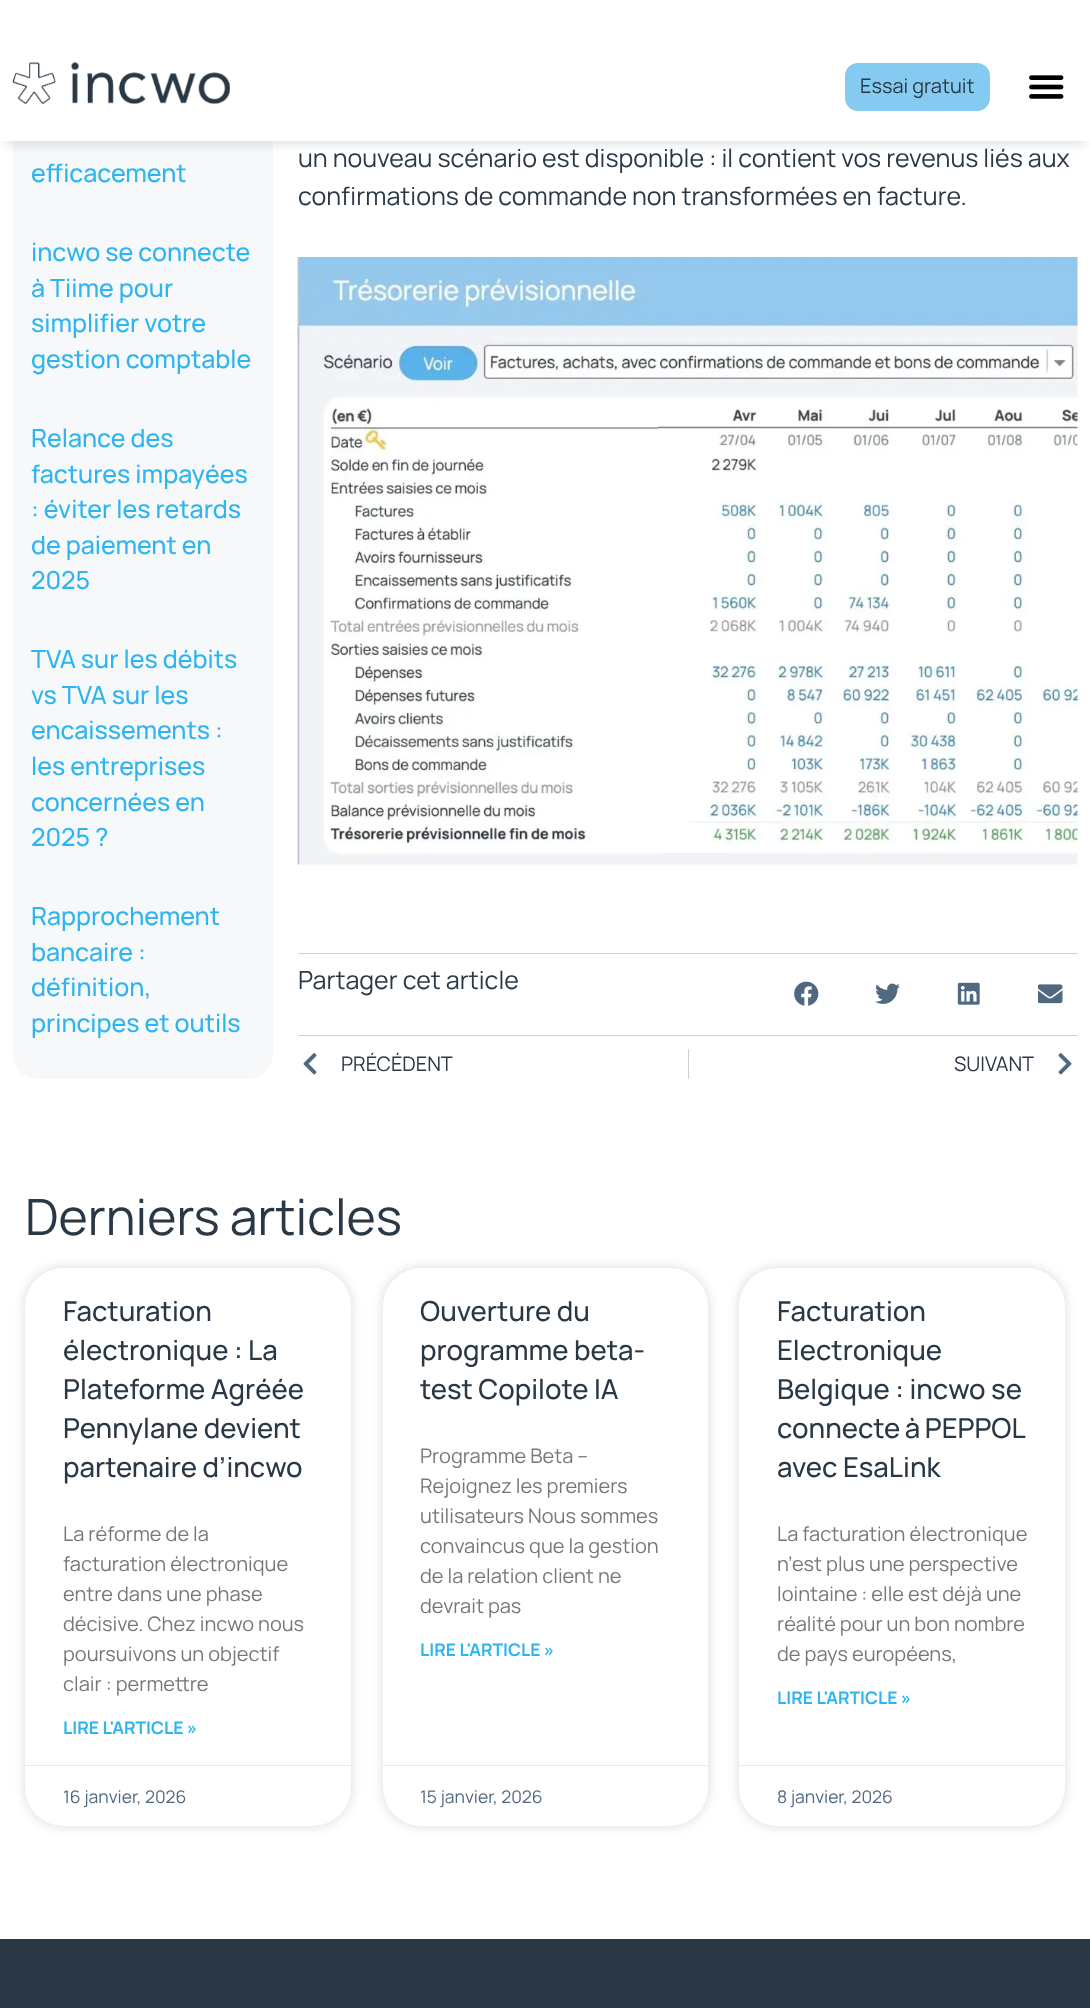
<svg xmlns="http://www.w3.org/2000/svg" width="1090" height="2008">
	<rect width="100%" height="100%" fill="#FFFFFF" />
	<path d="M13 31H273V1054C273 1068 262 1079 248 1079H38C24 1079 13 1068 13 1054Z" fill="#F6F8FA" />
	<rect x="5" y="13" width="1080" height="131" fill="#50697F" fill-opacity="0.2" filter="blur(6px)" />
	<rect x="0" y="4" width="1090" height="137" fill="#FFFFFF" />
	<image x="12" y="62" width="218" height="43" href="assets/img1.png" />
	<rect x="845" y="63" width="145" height="48" rx="13" fill="#85CAF1" />
	<text x="860" y="93" font-family="Manrope" font-size="20" fill="#2A3845">Essai gratuit</text>
	<image x="1029" y="75" width="35" height="24" href="assets/img2.png" />
	<g font-family="Manrope" font-size="25" font-weight="500" fill="#2EB4EF">
		<text x="31" y="182">efficacement</text>
		<text x="31" y="261">incwo se connecte</text>
		<text x="31" y="297">à Tiime pour</text>
		<text x="31" y="332">simplifier votre</text>
		<text x="31" y="368">gestion comptable</text>
		<text x="31" y="447">Relance des</text>
		<text x="31" y="483">factures impayées</text>
		<text x="31" y="518">: éviter les retards</text>
		<text x="31" y="554">de paiement en</text>
		<text x="31" y="589">2025</text>
		<text x="31" y="668">TVA sur les débits</text>
		<text x="31" y="704">vs TVA sur les</text>
		<text x="31" y="739">encaissements :</text>
		<text x="31" y="775">les entreprises</text>
		<text x="31" y="811">concernées en</text>
		<text x="31" y="846">2025 ?</text>
		<text x="31" y="925">Rapprochement</text>
		<text x="31" y="961">bancaire :</text>
		<text x="31" y="996">définition,</text>
		<text x="31" y="1032">principes et outils</text>
	</g>
	<g font-family="Manrope" font-size="25" fill="#2A3845">
		<text x="298" y="167">un nouveau scénario est disponible : il contient vos revenus liés aux</text>
		<text x="298" y="205">confirmations de commande non transformées en facture.</text>
	</g>
	<image x="297" y="257" width="781" height="608" href="assets/img3.png" />
	<rect x="298" y="953" width="780" height="1" fill="#CBD2D9" />
	<text x="298" y="989" font-family="Manrope" font-size="25" fill="#2A3845">Partager cet article</text>
	<image x="794" y="981" width="25" height="25" href="assets/img4.png" />
	<image x="875" y="983" width="25" height="21" href="assets/img5.png" />
	<image x="957" y="982" width="23" height="23" href="assets/img6.png" />
	<image x="1038" y="984" width="25" height="20" href="assets/img7.png" />
	<rect x="298" y="1035" width="780" height="1" fill="#CBD2D9" />
	<image x="303" y="1053" width="14" height="22" href="assets/img8.png" />
	<text x="341" y="1071" font-family="Manrope" font-size="20" fill="#2A3845">PRÉCÉDENT</text>
	<rect x="688" y="1049" width="1" height="30" fill="#CBD2D9" />
	<text x="954" y="1071" font-family="Manrope" font-size="20" fill="#2A3845">SUIVANT</text>
	<image x="1058" y="1053" width="14" height="22" href="assets/img9.png" />
	<text x="25" y="1235" font-family="Manrope" font-size="50" fill="#2A3845">Derniers articles</text>
	<rect x="25" y="1268" width="326" height="558" rx="38" fill="#000000" fill-opacity="0.15" filter="blur(6px)" />
	<rect x="25" y="1268" width="326" height="558" rx="38" fill="#FFFFFF" />
	<g font-family="Manrope" font-size="27.5" font-weight="500" fill="#2A3845">
		<text x="63" y="1321">Facturation</text>
		<text x="63" y="1360">électronique : La</text>
		<text x="63" y="1399">Plateforme Agréée</text>
		<text x="63" y="1438">Pennylane devient</text>
		<text x="63" y="1477">partenaire d’incwo</text>
	</g>
	<g font-family="Manrope" font-size="20" fill="#777777">
		<text x="63" y="1541">La réforme de la</text>
		<text x="63" y="1571">facturation électronique</text>
		<text x="63" y="1601">entre dans une phase</text>
		<text x="63" y="1631">décisive. Chez incwo nous</text>
		<text x="63" y="1661">poursuivons un objectif</text>
		<text x="63" y="1691">clair : permettre</text>
	</g>
	<text x="63" y="1734" font-family="Manrope" font-size="17.5" font-weight="700" fill="#2EB4EF">LIRE L'ARTICLE »</text>
	<rect x="25" y="1765" width="326" height="1" fill="#EAEAEA" />
	<text x="63" y="1803" font-family="Manrope" font-size="17.5" fill="#506980">16 janvier, 2026</text>
	<rect x="383" y="1268" width="325" height="558" rx="38" fill="#000000" fill-opacity="0.15" filter="blur(6px)" />
	<rect x="383" y="1268" width="325" height="558" rx="38" fill="#FFFFFF" />
	<g font-family="Manrope" font-size="27.5" font-weight="500" fill="#2A3845">
		<text x="420" y="1321">Ouverture du</text>
		<text x="420" y="1360">programme beta-</text>
		<text x="420" y="1399">test Copilote IA</text>
	</g>
	<g font-family="Manrope" font-size="20" fill="#777777">
		<text x="420" y="1463">Programme Beta –</text>
		<text x="420" y="1493">Rejoignez les premiers</text>
		<text x="420" y="1523">utilisateurs Nous sommes</text>
		<text x="420" y="1553">convaincus que la gestion</text>
		<text x="420" y="1583">de la relation client ne</text>
		<text x="420" y="1613">devrait pas</text>
	</g>
	<text x="420" y="1656" font-family="Manrope" font-size="17.5" font-weight="700" fill="#2EB4EF">LIRE L'ARTICLE »</text>
	<rect x="383" y="1765" width="325" height="1" fill="#EAEAEA" />
	<text x="420" y="1803" font-family="Manrope" font-size="17.5" fill="#506980">15 janvier, 2026</text>
	<rect x="739" y="1268" width="326" height="558" rx="38" fill="#000000" fill-opacity="0.15" filter="blur(6px)" />
	<rect x="739" y="1268" width="326" height="558" rx="38" fill="#FFFFFF" />
	<g font-family="Manrope" font-size="27.5" font-weight="500" fill="#2A3845">
		<text x="777" y="1321">Facturation</text>
		<text x="777" y="1360">Electronique</text>
		<text x="777" y="1399">Belgique : incwo se</text>
		<text x="777" y="1438" word-spacing="-1">connecte à PEPPOL</text>
		<text x="777" y="1477">avec EsaLink</text>
	</g>
	<g font-family="Manrope" font-size="20" fill="#777777">
		<text x="777" y="1541">La facturation électronique</text>
		<text x="777" y="1571">n’est plus une perspective</text>
		<text x="777" y="1601">lointaine : elle est déjà une</text>
		<text x="777" y="1631">réalité pour un bon nombre</text>
		<text x="777" y="1661">de pays européens,</text>
	</g>
	<text x="777" y="1704" font-family="Manrope" font-size="17.5" font-weight="700" fill="#2EB4EF">LIRE L'ARTICLE »</text>
	<rect x="739" y="1765" width="326" height="1" fill="#EAEAEA" />
	<text x="777" y="1803" font-family="Manrope" font-size="17.5" fill="#506980">8 janvier, 2026</text>
	<rect x="0" y="1939" width="1090" height="69" fill="#2A3845" />
</svg>
